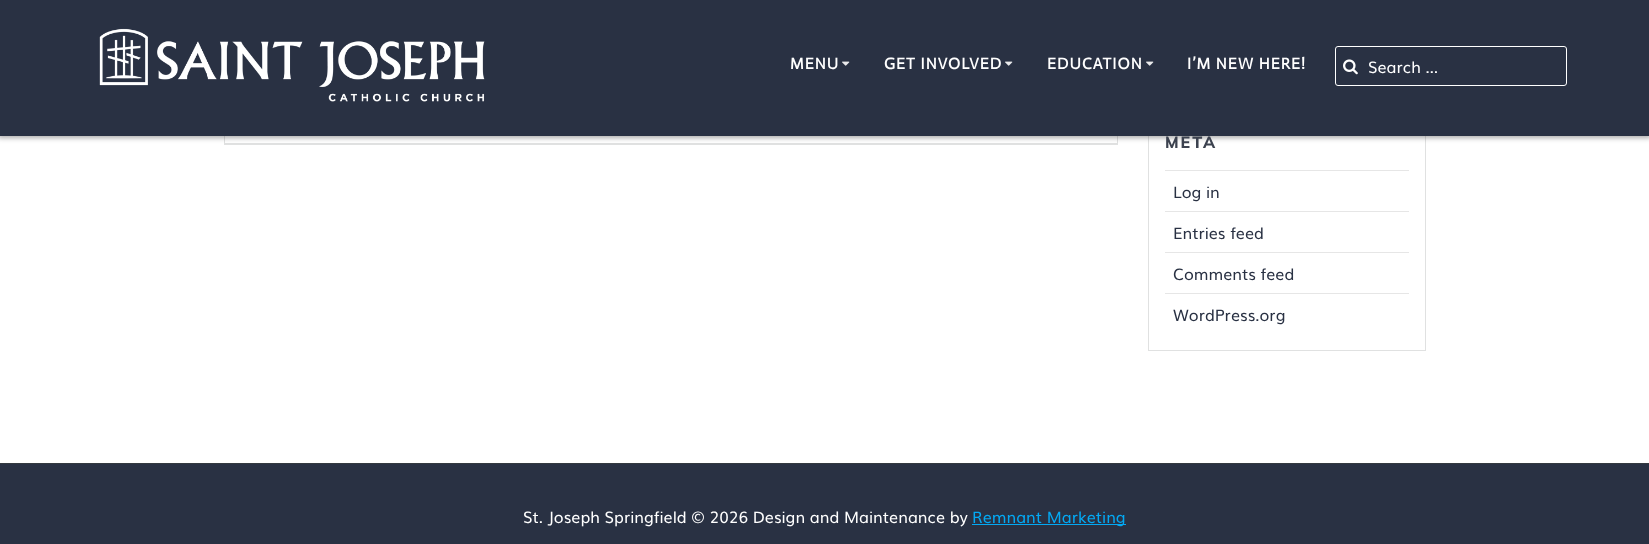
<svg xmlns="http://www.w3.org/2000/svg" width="1649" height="544">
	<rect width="100%" height="100%" fill="#FFFFFF" />
	<rect x="224.5" y="-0.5" width="893" height="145" fill="none" stroke="#E0E1E1" />
	<rect x="225" y="143" width="892" height="1" fill="#E0E1E1" />
	<rect x="1148.5" y="113.5" width="277" height="237" fill="none" stroke="#E0E1E1" />
	<rect x="-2" y="-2" width="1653" height="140" fill="#000000" fill-opacity="0.33" filter="blur(2.5px)" />
	<rect x="0" y="0" width="1649" height="136" fill="#293143" />
	<image x="99" y="28" width="386" height="74" href="assets/img1.png" />
	<text x="790" y="69" font-family="Actor" font-size="16" font-weight="700" letter-spacing="1" fill="#FFFFFF">MENU</text>
	<image x="842" y="61" width="8" height="5" href="assets/img2.png" />
	<text x="884" y="69" font-family="Actor" font-size="16" font-weight="700" letter-spacing="1" fill="#FFFFFF">GET INVOLVED</text>
	<image x="1005" y="61" width="8" height="5" href="assets/img2.png" />
	<text x="1047" y="69" font-family="Actor" font-size="16" font-weight="700" letter-spacing="1" fill="#FFFFFF">EDUCATION</text>
	<image x="1146" y="61" width="8" height="5" href="assets/img2.png" />
	<text x="1187" y="69" font-family="Actor" font-size="16" font-weight="700" letter-spacing="1" fill="#FFFFFF">I’M NEW HERE!</text>
	<rect x="1335.5" y="46.5" width="231" height="39" rx="2.5" fill="none" stroke="#FFFFFF" />
	<image x="1343" y="59" width="15" height="16" href="assets/img3.png" />
	<text x="1368" y="73" font-family="Muli" font-size="16" fill="#FFFFFF">Search …</text>
	<text x="1165" y="148" font-family="Muli" font-size="16" font-weight="800" letter-spacing="2" fill="#3C424F">META</text>
	<rect x="1165" y="170" width="244" height="1" fill="#E6E6E6" />
	<text x="1173" y="198" font-family="Muli" font-size="16" fill="#293143">Log in</text>
	<rect x="1165" y="211" width="244" height="1" fill="#E6E6E6" />
	<text x="1173" y="239" font-family="Muli" font-size="16" fill="#293143">Entries feed</text>
	<rect x="1165" y="252" width="244" height="1" fill="#E6E6E6" />
	<text x="1173" y="280" font-family="Muli" font-size="16" fill="#293143">Comments feed</text>
	<rect x="1165" y="293" width="244" height="1" fill="#E6E6E6" />
	<text x="1173" y="321" font-family="Muli" font-size="16" fill="#293143">WordPress.org</text>
	<rect x="0" y="464" width="1649" height="80" fill="#293143" />
	<rect x="0" y="463" width="1649" height="1" fill="#343A40" />
	<text x="523" y="523" font-family="Muli" font-size="16" fill="#FFFFFF">St. Joseph Springfield © 2026 Design and Maintenance by</text>
	<rect x="972" y="524" width="154" height="1" fill="#03A9F4" />
	<text x="972" y="523" font-family="Muli" font-size="16" fill="#03A9F4">Remnant Marketing</text>
</svg>
